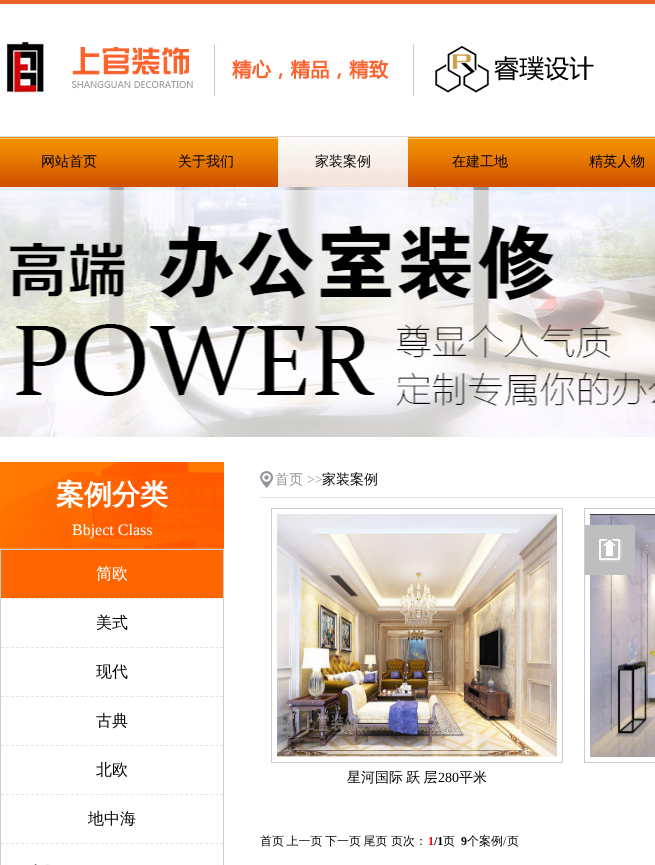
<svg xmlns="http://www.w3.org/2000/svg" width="655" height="865">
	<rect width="100%" height="100%" fill="#FFFFFF" />
	<rect x="0" y="0" width="655" height="4" fill="#ED632E" />
	<image x="6" y="40" width="588" height="56" href="assets/img1.png" />
	<image x="0" y="137" width="655" height="50" href="assets/img2.png" />
	<rect x="0" y="136" width="655" height="1" fill="#DDDDDD" />
	<g font-family="WenQuanYi Zen Hei" font-size="14" font-weight="500" fill="#000000">
		<text x="41" y="166">网站首页</text>
		<text x="178" y="166">关于我们</text>
	</g>
	<image x="278" y="137" width="130" height="50" href="assets/img3.png" />
	<g font-family="WenQuanYi Zen Hei" font-size="14" font-weight="500" fill="#000000">
		<text x="315" y="166">家装案例</text>
		<text x="452" y="166">在建工地</text>
		<text x="589" y="166">精英人物</text>
	</g>
	<image x="0" y="187" width="655" height="250" href="assets/img4.png" />
	<image x="0" y="462" width="224" height="87" href="assets/img5.png" />
	<text x="56" y="504" font-family="WenQuanYi Zen Hei" font-size="28" font-weight="700" fill="#FFFFFF">案例分类</text>
	<text x="72" y="535" font-family="Liberation Serif" font-size="16" fill="#FFFFFF">Bbject Class</text>
	<rect x="0.5" y="549.5" width="223" height="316" fill="none" stroke="#CCCCCC" />
	<path d="M1 598.5H223" fill="none" stroke="#E5E5E5" stroke-dasharray="3 1.98" />
	<rect x="1" y="550" width="222" height="48" fill="#FF6600" />
	<text x="96" y="579" font-family="WenQuanYi Zen Hei" font-size="16" font-weight="500" fill="#FFFFFF">简欧</text>
	<path d="M1 647.5H223" fill="none" stroke="#E5E5E5" stroke-dasharray="3 1.98" />
	<text x="96" y="628" font-family="WenQuanYi Zen Hei" font-size="16" font-weight="500" fill="#000000">美式</text>
	<path d="M1 696.5H223" fill="none" stroke="#E5E5E5" stroke-dasharray="3 1.98" />
	<text x="96" y="677" font-family="WenQuanYi Zen Hei" font-size="16" font-weight="500" fill="#000000">现代</text>
	<path d="M1 745.5H223" fill="none" stroke="#E5E5E5" stroke-dasharray="3 1.98" />
	<text x="96" y="726" font-family="WenQuanYi Zen Hei" font-size="16" font-weight="500" fill="#000000">古典</text>
	<path d="M1 794.5H223" fill="none" stroke="#E5E5E5" stroke-dasharray="3 1.98" />
	<text x="96" y="775" font-family="WenQuanYi Zen Hei" font-size="16" font-weight="500" fill="#000000">北欧</text>
	<path d="M1 843.5H223" fill="none" stroke="#E5E5E5" stroke-dasharray="3 1.98" />
	<text x="88" y="824" font-family="WenQuanYi Zen Hei" font-size="16" font-weight="500" fill="#000000">地中海</text>
	<image x="34" y="864" width="16" height="1" href="assets/img6.png" />
	<image x="260" y="471" width="13" height="17" href="assets/img7.png" />
	<rect x="260" y="497" width="395" height="1" fill="#E5E5E5" />
	<text x="275" y="484" font-family="WenQuanYi Zen Hei" font-size="14" font-weight="500" fill="#999999">首页</text>
	<text x="307" y="484" font-family="Liberation Serif" font-size="14" fill="#999999">&gt;&gt;</text>
	<text x="322" y="484" font-family="WenQuanYi Zen Hei" font-size="14" font-weight="500" fill="#000000">家装案例</text>
	<rect x="584.5" y="508.5" width="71" height="254" fill="none" stroke="#CCCCCC" />
	<image x="590" y="514" width="65" height="243" href="assets/img8.png" />
	<rect x="271.5" y="508.5" width="291" height="254" fill="none" stroke="#CCCCCC" />
	<image x="277" y="514" width="280" height="243" href="assets/img9.png" />
	<text x="347" y="782" word-spacing="-1" font-family="WenQuanYi Zen Hei" font-size="14" font-weight="500" fill="#000000">星河国际 跃 层</text>
	<text x="438" y="782" font-family="Liberation Serif" font-size="14" fill="#000000">280</text>
	<text x="459" y="782" font-family="WenQuanYi Zen Hei" font-size="14" font-weight="500" fill="#000000">平米</text>
	<g font-family="WenQuanYi Zen Hei" font-size="12" font-weight="500" fill="#000000">
		<text x="260" y="845" word-spacing="-1">首页 上一页</text>
		<text x="325" y="845" word-spacing="-1">下一页 尾页</text>
		<text x="391" y="845">页次：</text>
	</g>
	<text x="428" y="845" font-family="Liberation Serif" font-size="12" font-weight="700" fill="#FF0000">1</text>
	<text x="434" y="845" font-family="Liberation Serif" font-size="12" font-weight="700" fill="#000000">/1</text>
	<text x="443" y="845" font-family="WenQuanYi Zen Hei" font-size="12" font-weight="500" fill="#000000">页</text>
	<text x="461" y="845" font-family="Liberation Serif" font-size="12" font-weight="700" fill="#000000">9</text>
	<text x="467" y="845" font-family="WenQuanYi Zen Hei" font-size="12" font-weight="500" fill="#000000">个案例</text>
	<text x="503" y="845" font-family="Liberation Serif" font-size="12" fill="#000000">/</text>
	<text x="507" y="845" font-family="WenQuanYi Zen Hei" font-size="12" font-weight="500" fill="#000000">页</text>
	<image x="585" y="525" width="50" height="50" href="assets/img10.png" />
</svg>
